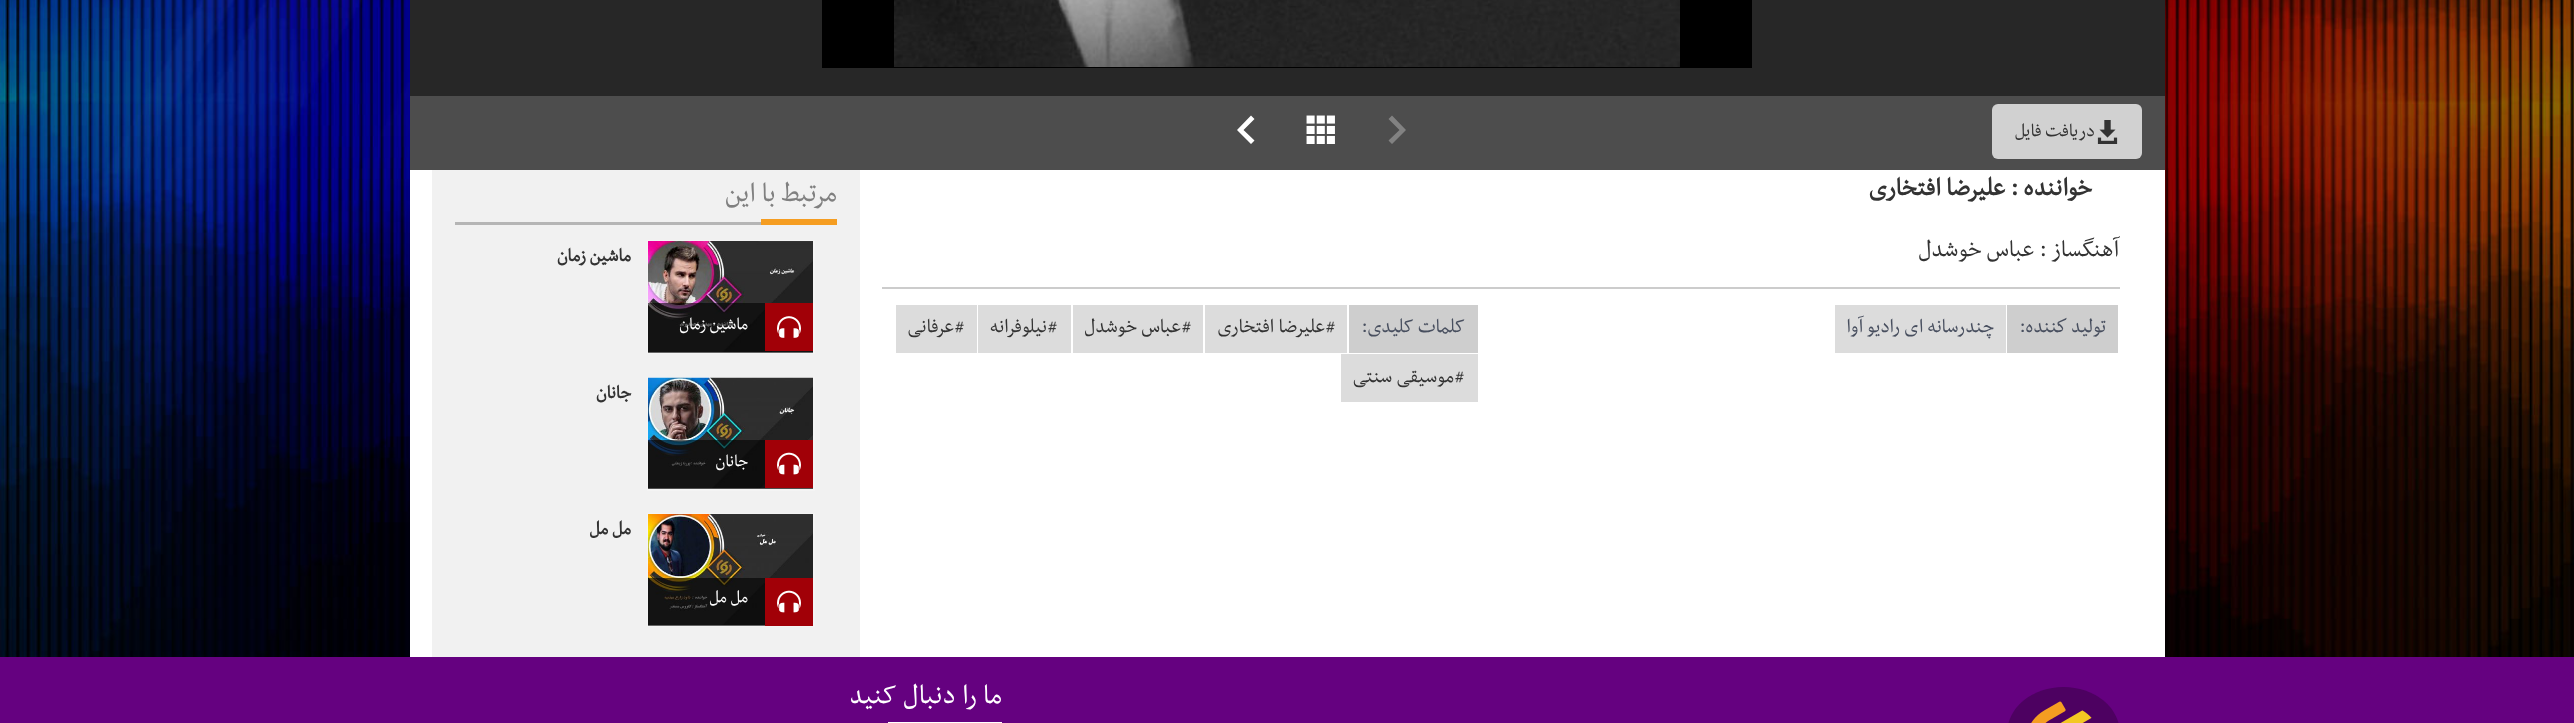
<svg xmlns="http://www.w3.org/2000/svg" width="2574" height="723">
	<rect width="100%" height="100%" fill="#FFFFFF" />
	<image x="0" y="0" width="2574" height="657" href="assets/img1.png" />
	<rect x="410" y="170" width="1755" height="487" fill="#FFFFFF" />
	<rect x="410" y="0" width="1755" height="96" fill="#272727" />
	<rect x="822" y="0" width="930" height="68" fill="#000000" />
	<image x="894" y="0" width="786" height="67" href="assets/img2.png" />
	<rect x="410" y="96" width="1755" height="74" fill="#4D4D4D" />
	<rect x="1992" y="104" width="150" height="55" rx="6" fill="#D1D1D1" />
	<image x="2097" y="120" width="21" height="24" href="assets/img3.png" />
	<text x="2095" y="136" font-family="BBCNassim" font-size="21" direction="rtl" fill="#333333">دریافت فایل</text>
	<path d="M1392 115.5L1388.5 119L1399.5 130L1388.5 140.5L1392 144L1406 130Z" fill="#828282" />
	<image x="1306" y="115" width="29" height="29" href="assets/img4.png" />
	<path d="M1251 144L1254.5 140.5L1243.5 130L1254.5 119L1251 115.5L1237 130Z" fill="#FFFFFF" />
	<text x="2092" y="195" font-family="BBCNassim" font-size="28.5" font-weight="700" direction="rtl" fill="#333333">خواننده : علیرضا افتخاری</text>
	<text x="2119" y="256" font-family="BBCNassim" font-size="27" direction="rtl" fill="#333333">آهنگساز : عباس خوشدل</text>
	<rect x="882" y="287" width="1238" height="2" fill="#CCCCCC" />
	<rect x="2007" y="305" width="111" height="48" fill="#CECECE" />
	<text x="2106" y="332" font-family="BBCNassim" font-size="22.5" direction="rtl" fill="#484F5F">تولید كننده:</text>
	<rect x="1835" y="305" width="171" height="48" fill="#DCDCDC" />
	<text x="1994" y="332" font-family="BBCNassim" font-size="22.5" direction="rtl" fill="#484F5F">چندرسانه ای رادیو آوا</text>
	<rect x="1349" y="305" width="129" height="48" fill="#CECECE" />
	<text x="1465" y="332" font-family="BBCNassim" font-size="22.5" direction="rtl" fill="#484F5F">کلمات کلیدی:</text>
	<rect x="1205" y="305" width="142" height="48" fill="#DCDCDC" />
	<text x="1336" y="332" font-family="BBCNassim" font-size="22.5" direction="rtl" fill="#333333">#علیرضا افتخاری</text>
	<rect x="1073" y="305" width="130" height="48" fill="#DCDCDC" />
	<text x="1192" y="332" font-family="BBCNassim" font-size="22.5" direction="rtl" fill="#333333">#عباس خوشدل</text>
	<rect x="978" y="305" width="93" height="48" fill="#DCDCDC" />
	<text x="1058" y="332" font-family="BBCNassim" font-size="22.5" direction="rtl" fill="#333333">#نیلوفرانه</text>
	<rect x="896" y="305" width="81" height="48" fill="#DCDCDC" />
	<text x="965" y="332" font-family="BBCNassim" font-size="22.5" direction="rtl" fill="#333333">#عرفانی</text>
	<rect x="1341" y="354" width="137" height="48" fill="#DCDCDC" />
	<text x="1465" y="382" font-family="BBCNassim" font-size="22.5" direction="rtl" fill="#333333">#موسیقی سنتی</text>
	<rect x="432" y="170" width="428" height="487" fill="#F1F1F1" />
	<rect x="455" y="222" width="306" height="3" fill="#B5B5B5" />
	<text x="837" y="201" font-family="BBCNassim" font-size="31.5" direction="rtl" fill="#808080">مرتبط با این</text>
	<rect x="761" y="219" width="76" height="6" fill="#F59D21" />
	<text x="631" y="261" font-family="BBCNassim" font-size="21" font-weight="700" direction="rtl" fill="#333333">ماشین زمان</text>
	<rect x="648" y="241" width="166" height="112" fill="none" stroke="#F4F4F4" stroke-width="2" />
	<image x="648" y="241" width="165" height="111" href="assets/img5.png" />
	<rect x="648" y="303" width="165" height="50" fill="#000000" fill-opacity="0.59" />
	<rect x="765" y="303" width="48" height="48" fill="#A10007" />
	<image x="777" y="316" width="24" height="22" href="assets/img6.png" />
	<text x="748" y="329" font-family="BBCNassim" font-size="19.5" direction="rtl" fill="#FFFFFF">ماشین زمان</text>
	<text x="631" y="398" font-family="BBCNassim" font-size="21" font-weight="700" direction="rtl" fill="#333333">جانان</text>
	<rect x="648" y="378" width="166" height="112" fill="none" stroke="#F4F4F4" stroke-width="2" />
	<image x="648" y="377" width="165" height="112" href="assets/img7.png" />
	<rect x="648" y="440" width="165" height="49" fill="#000000" fill-opacity="0.59" />
	<rect x="765" y="440" width="48" height="48" fill="#A10007" />
	<image x="777" y="452" width="24" height="23" href="assets/img8.png" />
	<text x="748" y="466" font-family="BBCNassim" font-size="19.5" direction="rtl" fill="#FFFFFF">جانان</text>
	<text x="631" y="534" font-family="BBCNassim" font-size="21" font-weight="700" direction="rtl" fill="#333333">مل مل</text>
	<rect x="648" y="514" width="166" height="112" fill="none" stroke="#F4F4F4" stroke-width="2" />
	<image x="648" y="514" width="165" height="111" href="assets/img9.png" />
	<rect x="648" y="578" width="117" height="48" fill="#000000" fill-opacity="0.59" />
	<rect x="765" y="578" width="48" height="48" fill="#A10007" />
	<image x="777" y="590" width="24" height="23" href="assets/img8.png" />
	<text x="748" y="602" font-family="BBCNassim" font-size="19.5" direction="rtl" fill="#FFFFFF">مل مل</text>
	<rect x="0" y="657" width="2574" height="66" fill="#650180" />
	<rect x="2007" y="687" width="113" height="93" rx="56.5" fill="#4D0161" />
	<image x="2031" y="701" width="61" height="22" href="assets/img10.png" />
	<text x="1002" y="703" font-family="BBCNassim" font-size="31.5" direction="rtl" fill="#FFFFFF">ما را دنبال کنید</text>
	<rect x="888" y="722" width="114" height="1" fill="#FFFFFF" />
</svg>
